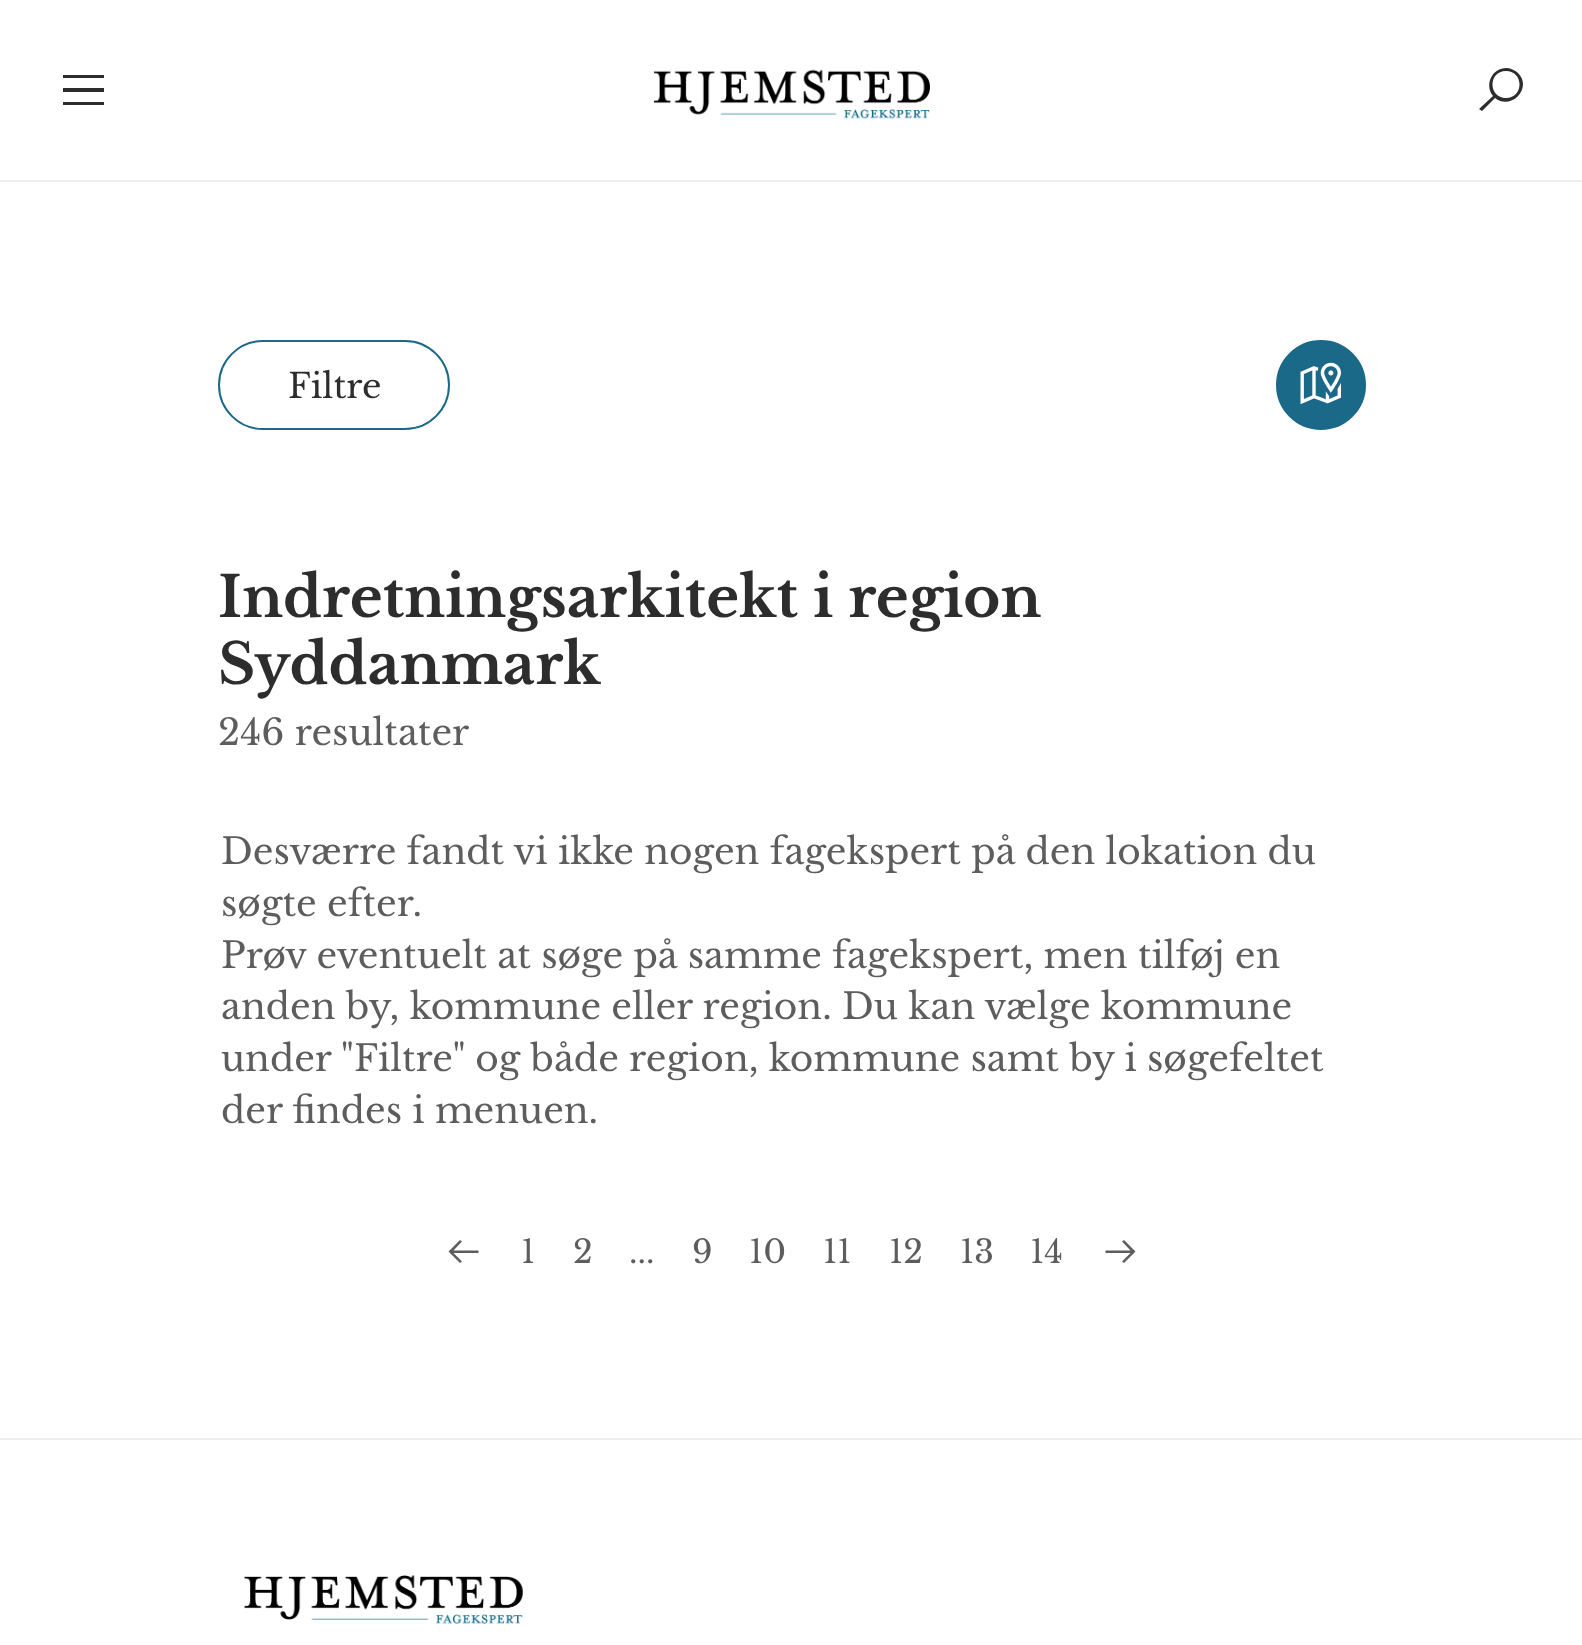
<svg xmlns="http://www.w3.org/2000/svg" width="1582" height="1645">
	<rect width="100%" height="100%" fill="#FFFFFF" />
	<path d="M63 75V78H104V75ZM63 88V92H104V88ZM63 102V105H104V102Z" fill="#2D2D2D" />
	<image x="654" y="69" width="276" height="50" href="assets/img1.png" />
	<path d="M1506 68C1492 68 1484 85 1493 96L1479 109L1482 111L1495 98C1511 111 1533 88 1518 73C1515 70 1510 68 1506 68ZM1506 71C1524 71 1524 98 1506 98C1488 98 1488 71 1506 71Z" fill="#2D2D2D" />
	<rect x="0" y="180" width="1582" height="2" fill="#EEEEEE" />
	<rect x="219" y="341" width="230" height="88" rx="44" fill="none" stroke="#1A6988" stroke-width="2" />
	<text x="288" y="398" font-family="Libre Baskerville" font-size="34" fill="#2D2D2D">Filtre</text>
	<circle cx="1321" cy="385" r="44" fill="#1A6988" stroke="#1A6988" stroke-width="2" />
	<image x="1300" y="362" width="41" height="43" href="assets/img2.png" />
	<g font-family="Libre Baskerville" font-size="56.25" font-weight="700" fill="#2D2D2D">
		<text x="218" y="617">Indretningsarkitekt i region</text>
		<text x="218" y="684">Syddanmark</text>
	</g>
	<g font-family="Libre Baskerville" font-size="36" fill="#5D5D5D">
		<text x="218" y="745">246 resultater</text>
		<text x="221" y="864">Desværre fandt vi ikke nogen fagekspert på den lokation du</text>
		<text x="221" y="916">søgte efter.</text>
		<text x="221" y="968">Prøv eventuelt at søge på samme fagekspert, men tilføj en</text>
		<text x="221" y="1019">anden by, kommune eller region. Du kan vælge kommune</text>
		<text x="221" y="1071">under "Filtre" og både region, kommune samt by i søgefeltet</text>
		<text x="221" y="1123">der findes i menuen.</text>
	</g>
	<path d="M460 1240L448.5 1251.5L460 1263L462 1261.5L453.5 1253H478.5V1250.5H453.5L462 1241.5Z" fill="#5D5D5D" />
	<g font-family="Libre Baskerville" font-size="32" fill="#5D5D5D">
		<text x="521" y="1263">1</text>
		<text x="573" y="1263">2</text>
		<text x="629" y="1263">...</text>
		<text x="692" y="1263">9</text>
		<text x="749" y="1263">10</text>
		<text x="823" y="1263">11</text>
		<text x="889" y="1263">12</text>
		<text x="960" y="1263">13</text>
		<text x="1030" y="1263">14</text>
	</g>
	<path d="M1124 1240L1122 1241.5L1130.5 1250.5H1105.5V1253H1130.5L1122 1261.5L1124 1263L1135.5 1251.5Z" fill="#5D5D5D" />
	<rect x="0" y="1438" width="1582" height="2" fill="#EEEEEE" />
	<image x="244" y="1575" width="279" height="49" href="assets/img3.png" />
</svg>
